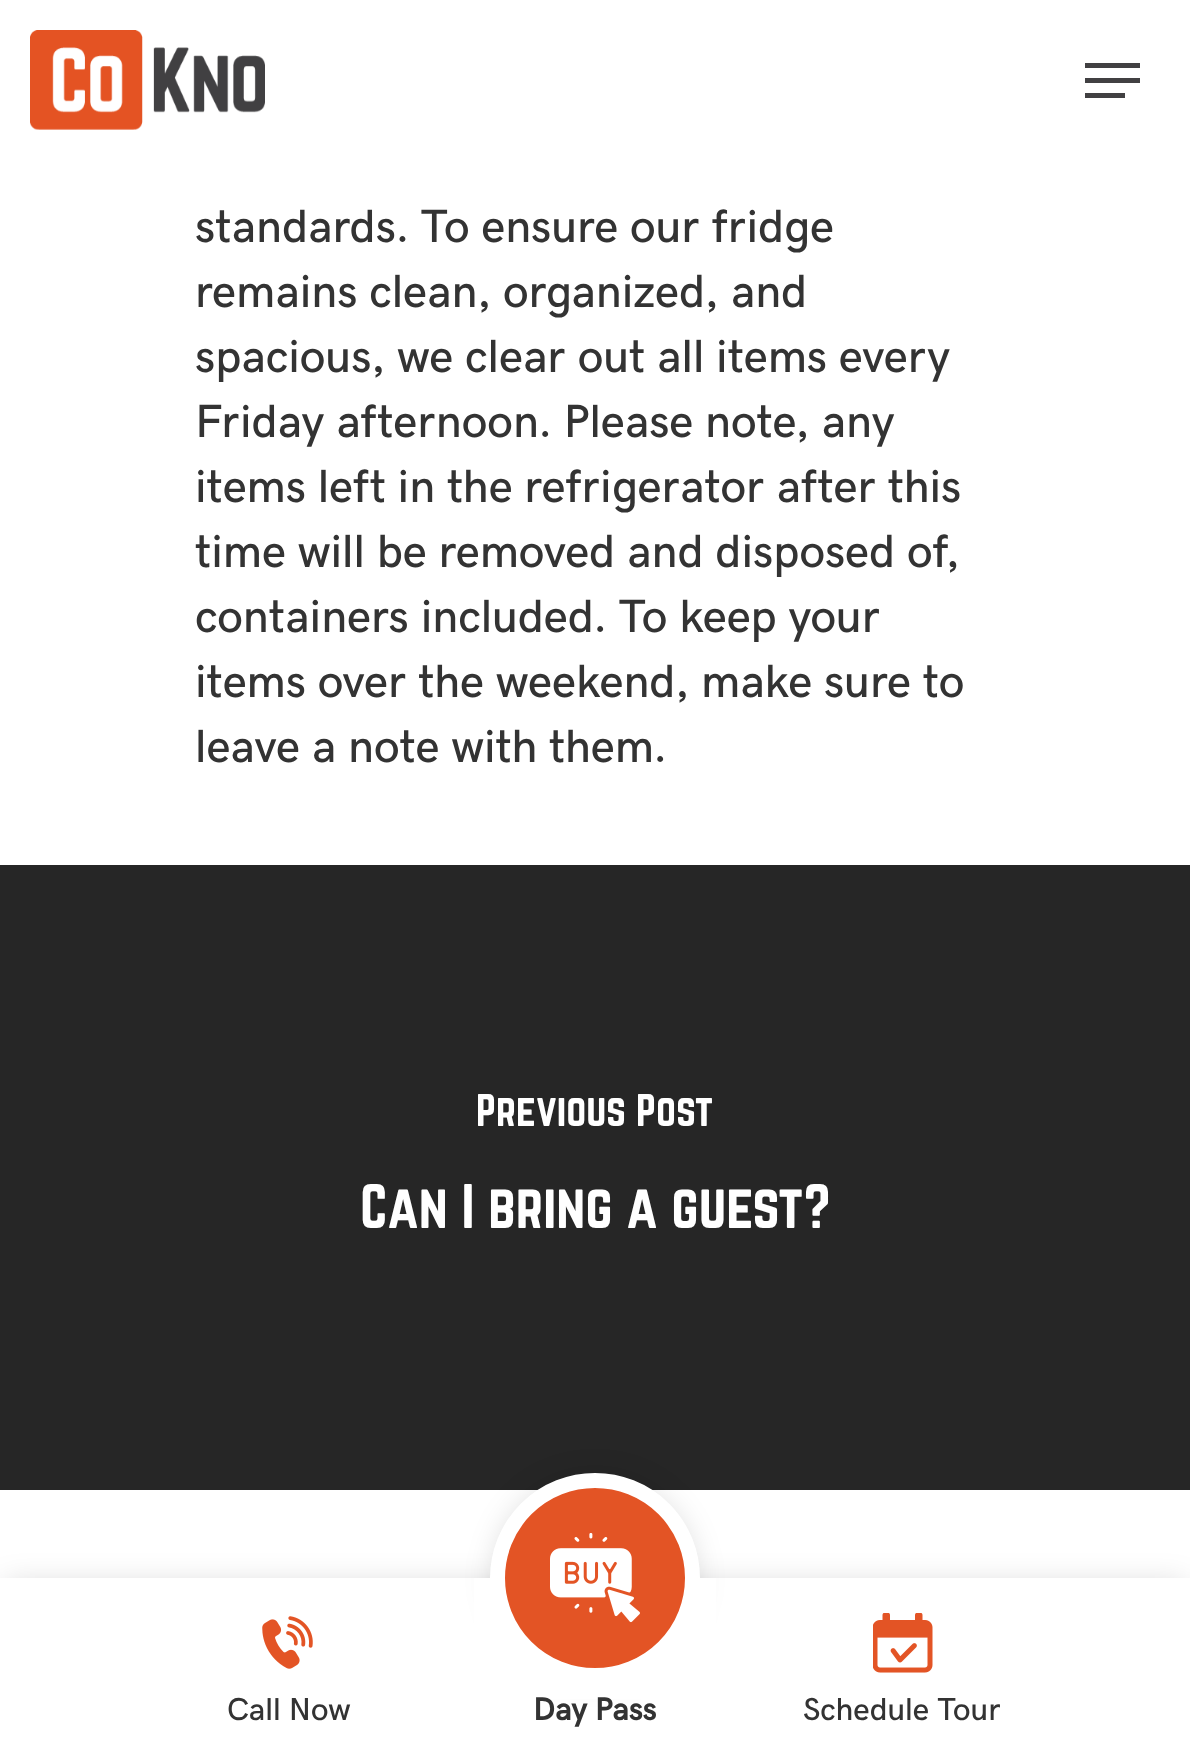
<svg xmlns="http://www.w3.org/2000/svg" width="1190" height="1756">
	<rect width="100%" height="100%" fill="#FFFFFF" />
	<image x="30" y="30" width="235" height="100" href="assets/img1.png" />
	<rect x="1085" y="63" width="55" height="5" fill="#414042" />
	<rect x="1085" y="93" width="40" height="5" fill="#414042" />
	<rect x="1085" y="78" width="55" height="5" fill="#414042" />
	<g font-family="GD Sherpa" font-size="44" fill="#333333">
		<text x="195" y="242">standards. To ensure our fridge</text>
		<text x="195" y="307">remains clean, organized, and</text>
		<text x="195" y="372">spacious, we clear out all items every</text>
		<text x="195" y="437">Friday afternoon. Please note, any</text>
		<text x="195" y="502">items left in the refrigerator after this</text>
		<text x="195" y="567">time will be removed and disposed of,</text>
		<text x="195" y="632">containers included. To keep your</text>
		<text x="195" y="697">items over the weekend, make sure to</text>
		<text x="195" y="762">leave a note with them.</text>
	</g>
	<rect x="0" y="865" width="1190" height="625" fill="#262626" />
	<text x="476" y="1126" font-family="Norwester" font-size="40" fill="#FFFFFF">Previous Post</text>
	<text x="360" y="1228" font-family="Norwester" font-size="55" fill="#FFFFFF">Can I bring a guest?</text>
	<rect x="5" y="1583" width="1180" height="170" fill="#000000" fill-opacity="0.15" filter="blur(15px)" />
	<rect x="0" y="1578" width="1190" height="178" fill="#FFFFFF" />
	<image x="262" y="1616" width="51" height="53" href="assets/img2.png" />
	<text x="227" y="1720" font-family="GD Sherpa" font-size="30" fill="#333333">Call Now</text>
	<rect x="495" y="1478" width="200" height="200" rx="100" fill="#000000" fill-opacity="0.15" filter="blur(15px)" />
	<rect x="474" y="1578" width="242" height="121" fill="#FFFFFF" />
	<circle cx="595" cy="1578" r="97.5" fill="#E35425" stroke="#FFFFFF" stroke-width="15" />
	<image x="550" y="1533" width="90" height="90" href="assets/img3.png" />
	<text x="533" y="1720" font-family="GD Sherpa" font-size="30" font-weight="700" fill="#333333">Day Pass</text>
	<image x="873" y="1613" width="60" height="60" href="assets/img4.png" />
	<text x="803" y="1720" font-family="GD Sherpa" font-size="30" fill="#333333">Schedule Tour</text>
</svg>
